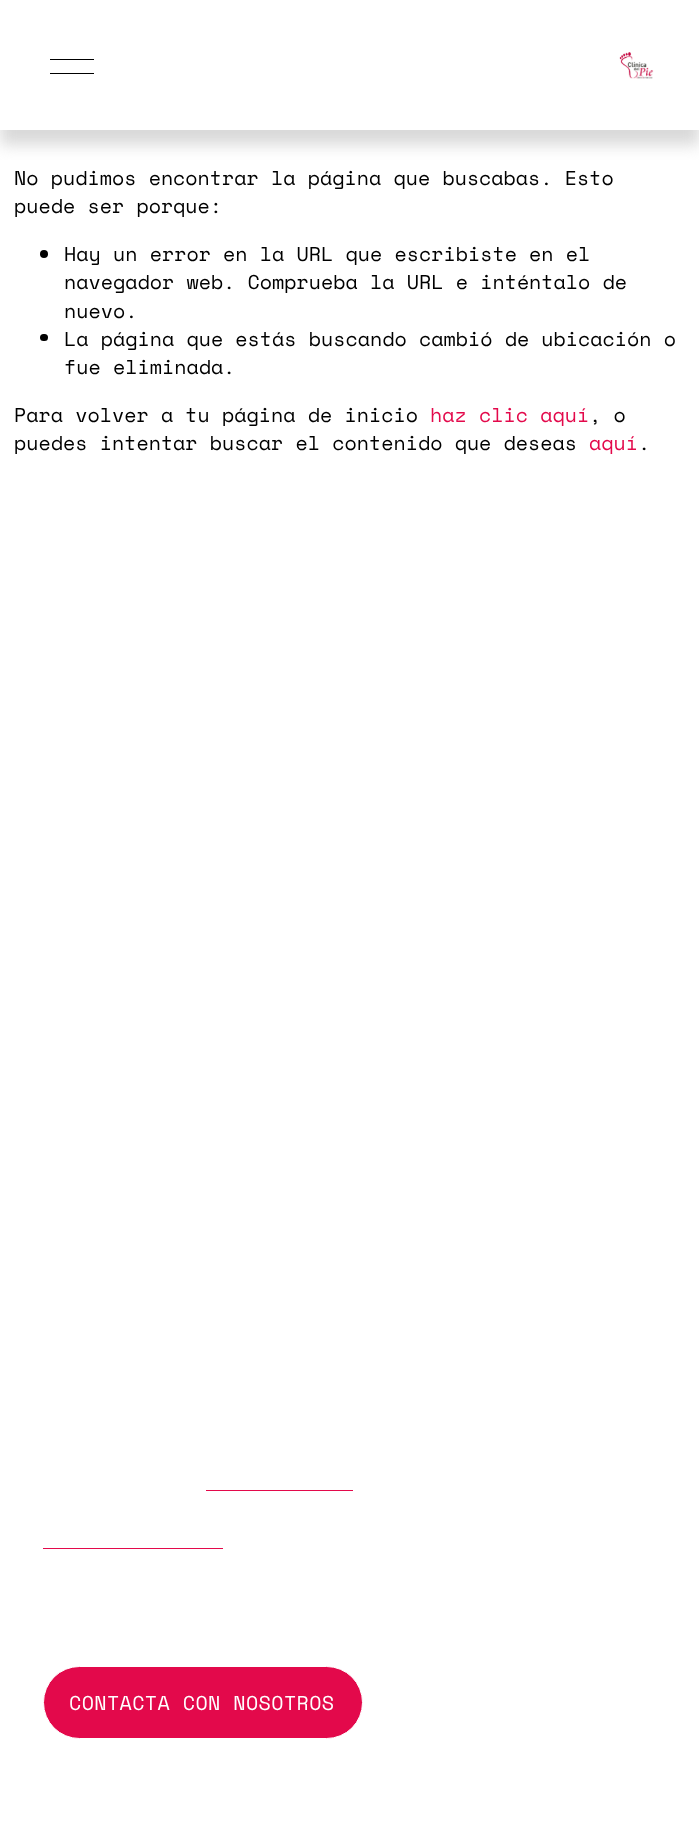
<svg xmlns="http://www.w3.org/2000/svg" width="699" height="1846">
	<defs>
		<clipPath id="clip1"><rect x="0" y="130" width="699" height="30" /></clipPath>
	</defs>
	<rect width="100%" height="100%" fill="#FFFFFF" />
	<g clip-path="url(#clip1)">
		<rect x="0" y="15" width="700" height="130" fill="#D9D9D9" filter="blur(7.5px)" />
	</g>
	<rect x="50" y="59" width="44" height="1" fill="#000000" />
	<rect x="50" y="73" width="44" height="1" fill="#000000" />
	<image x="619" y="52" width="35" height="27" href="assets/img1.png" />
	<g font-family="Space Mono" font-size="20" fill="#000000">
		<text x="14" y="185">No pudimos encontrar la página que buscabas. Esto</text>
		<text x="14" y="213">puede ser porque:</text>
	</g>
	<circle cx="44" cy="254" r="4" fill="#000000" />
	<g font-family="Space Mono" font-size="20" fill="#000000">
		<text x="64" y="261">Hay un error en la URL que escribiste en el</text>
		<text x="64" y="289">navegador web. Comprueba la URL e inténtalo de</text>
		<text x="64" y="318">nuevo.</text>
	</g>
	<rect x="40" y="334" width="8" height="7" rx="3.5" fill="#000000" />
	<g font-family="Space Mono" font-size="20" fill="#000000">
		<text x="64" y="346">La página que estás buscando cambió de ubicación o</text>
		<text x="64" y="374">fue eliminada.</text>
		<text x="14" y="422">Para volver a tu página de inicio</text>
	</g>
	<text x="430" y="422" font-family="Space Mono" font-size="20" fill="#E3094B">haz clic aquí</text>
	<g font-family="Space Mono" font-size="20" fill="#000000">
		<text x="589" y="422">, o</text>
		<text x="14" y="450">puedes intentar buscar el contenido que deseas</text>
	</g>
	<text x="589" y="450" font-family="Space Mono" font-size="20" fill="#E3094B">aquí</text>
	<text x="638" y="450" font-family="Space Mono" font-size="20" fill="#000000">.</text>
	<rect x="206" y="1490" width="147" height="1" fill="#E3094B" />
	<rect x="43" y="1548" width="180" height="1" fill="#E3094B" />
	<rect x="43.5" y="1666.5" width="319" height="72" rx="36" fill="#E3094B" stroke="#FFFFFF" />
	<text x="69" y="1710" font-family="Space Mono" font-size="20" letter-spacing="0.4" fill="#FFFFFF">CONTACTA CON NOSOTROS</text>
</svg>
